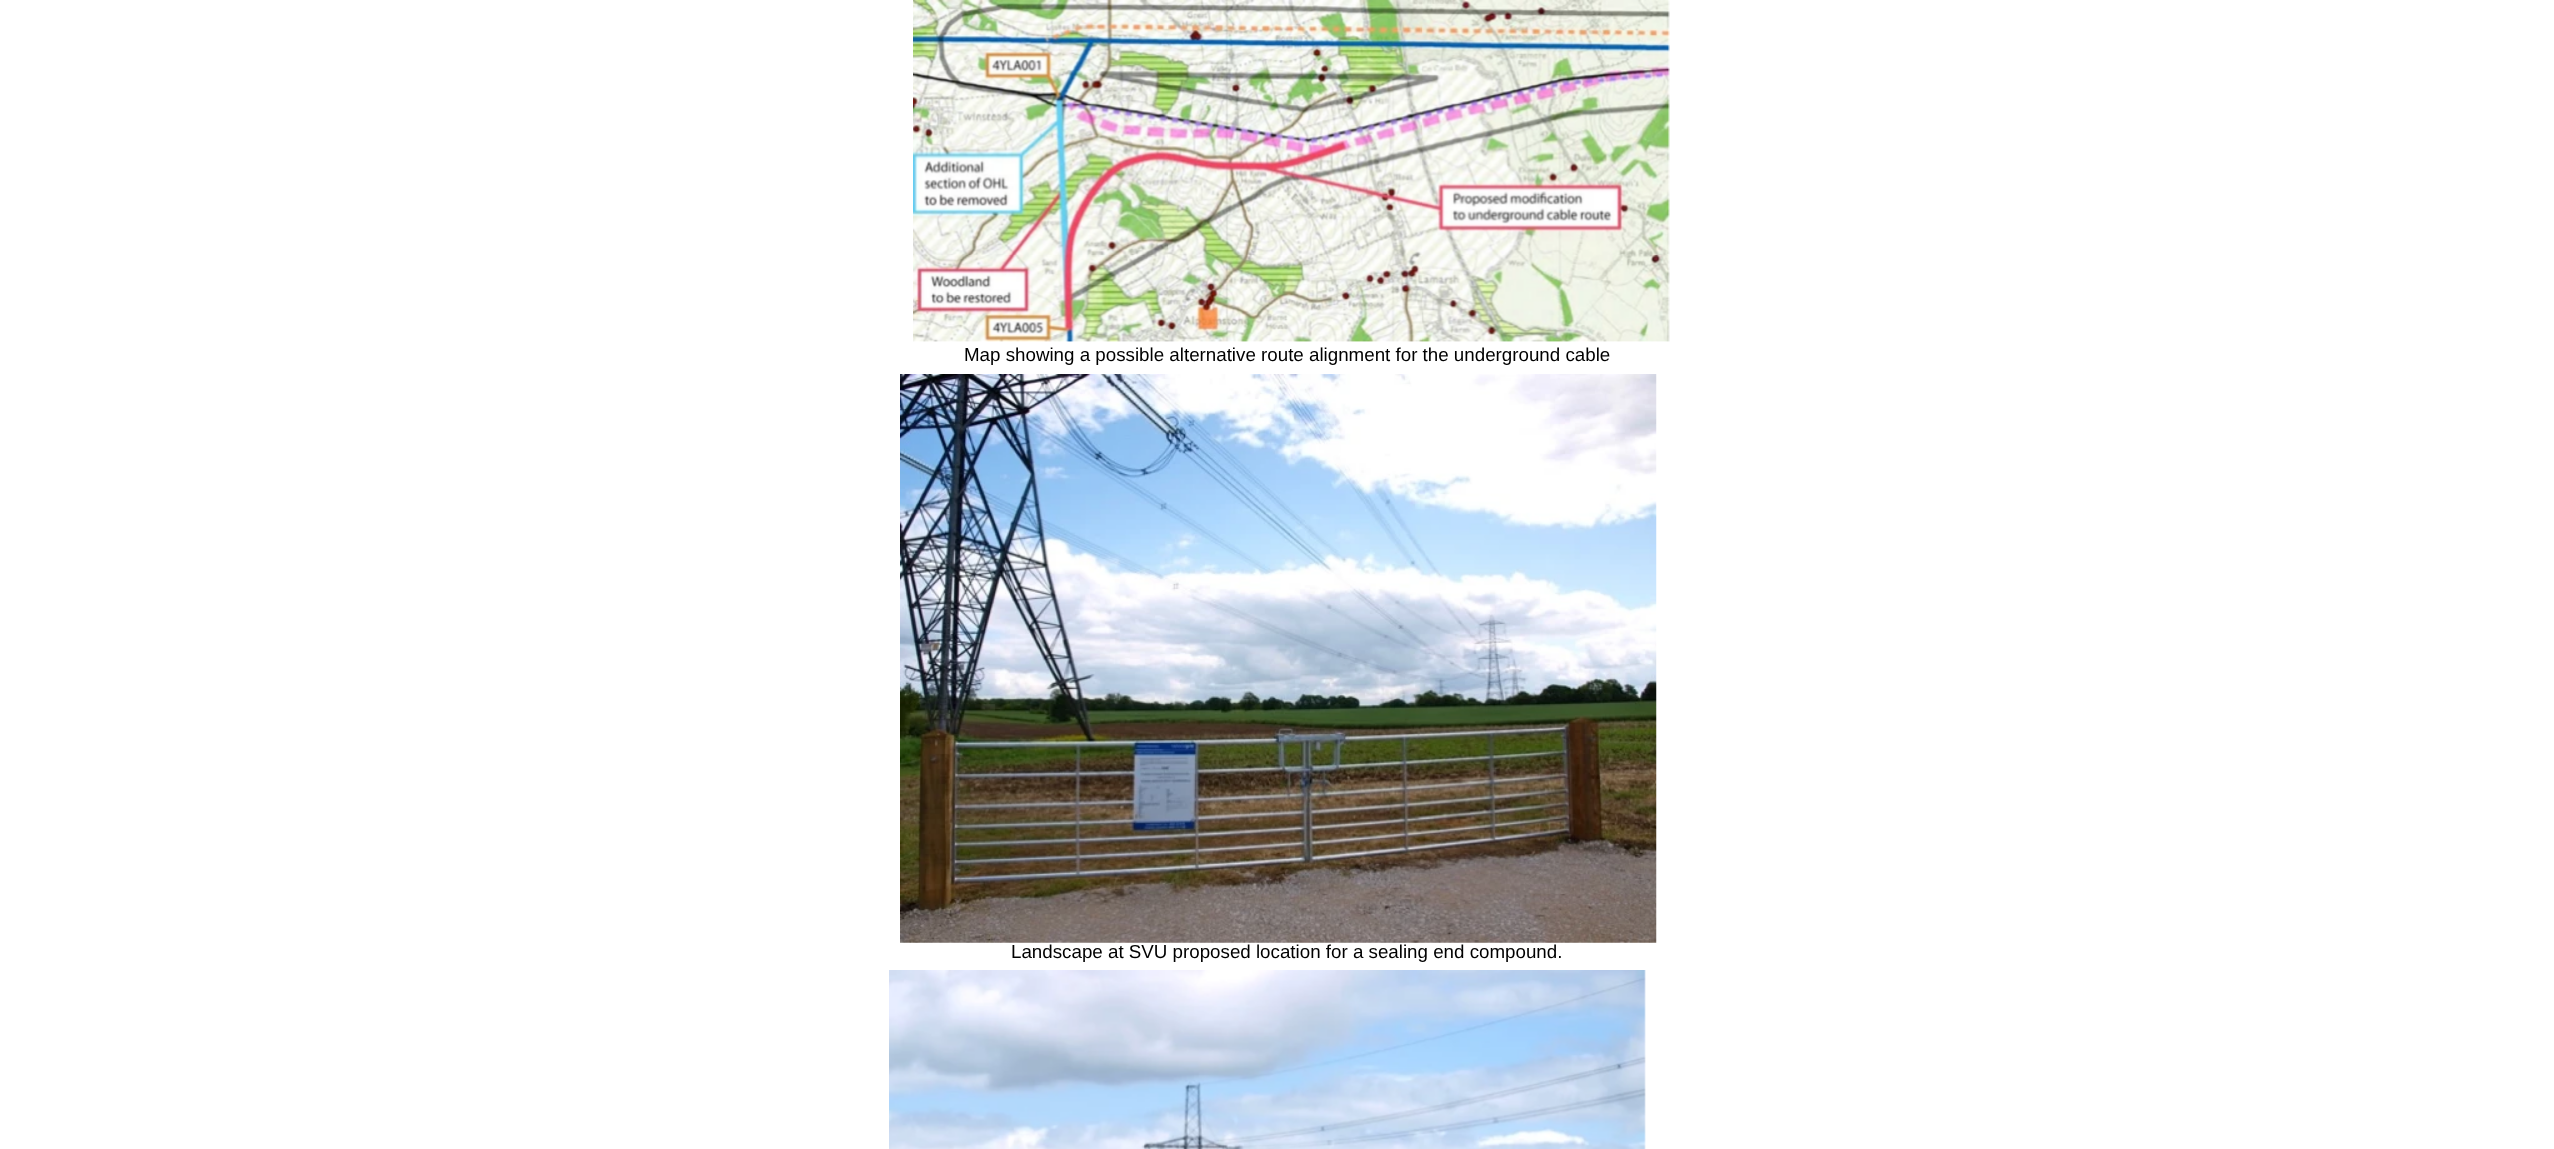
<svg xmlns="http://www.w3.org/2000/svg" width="2554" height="1149">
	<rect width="100%" height="100%" fill="#FFFFFF" />
	<image x="913" y="0" width="757" height="342" href="assets/img1.png" />
	<text x="964" y="361" font-family="Liberation Sans" font-size="18.75" fill="#000000">Map showing a possible alternative route alignment for the underground cable</text>
	<image x="900" y="374" width="757" height="569" href="assets/img2.png" />
	<text x="1011" y="958" font-family="Liberation Sans" font-size="18.75" fill="#000000">Landscape at SVU proposed location for a sealing end compound.</text>
	<image x="889" y="970" width="757" height="179" href="assets/img3.png" />
</svg>
